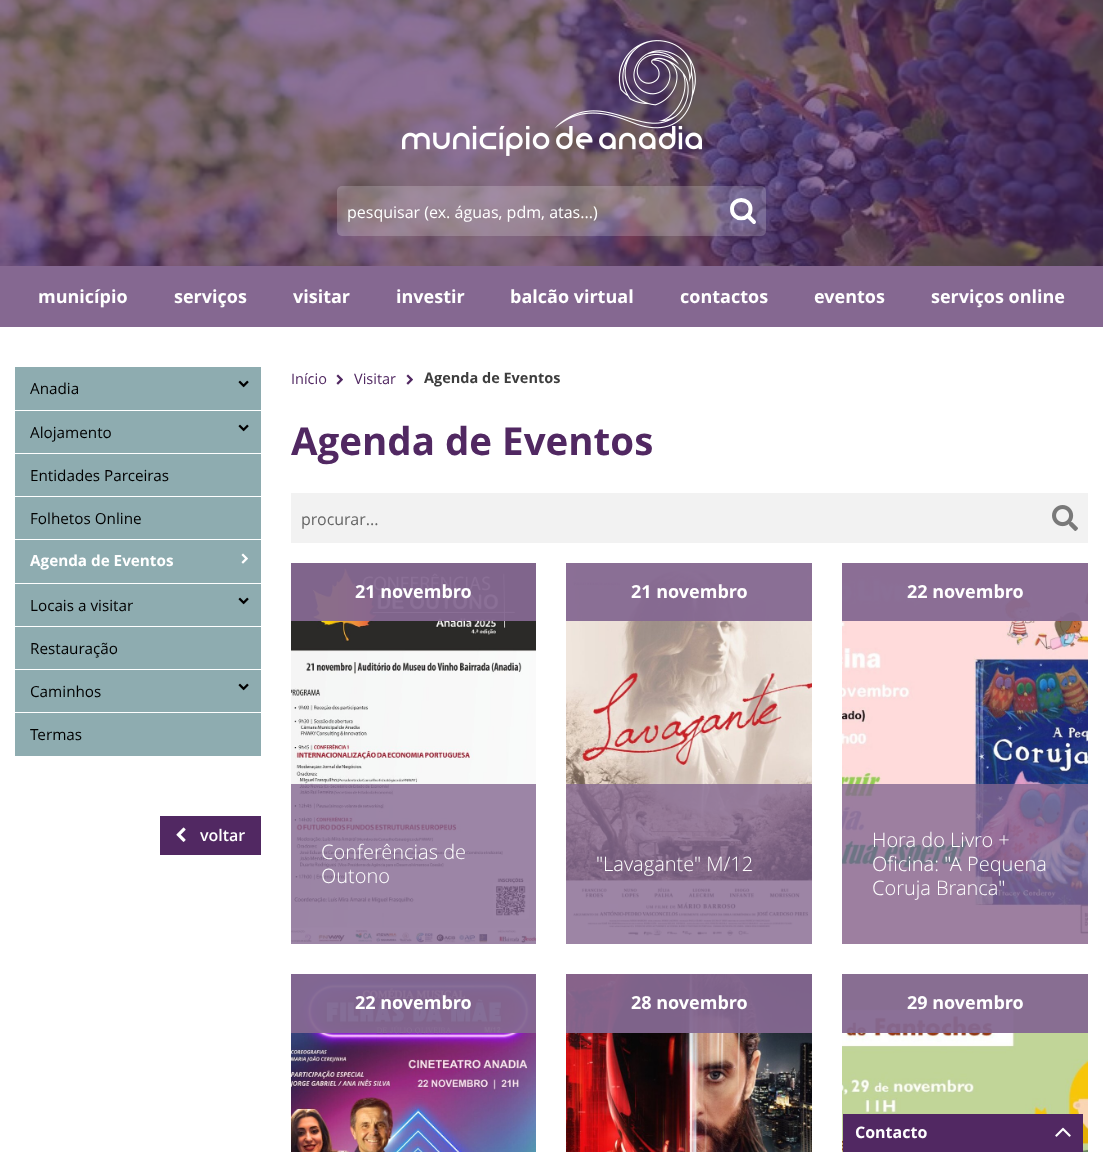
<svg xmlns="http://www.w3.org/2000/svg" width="1103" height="1152">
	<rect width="100%" height="100%" fill="#FFFFFF" />
	<image x="0" y="0" width="1103" height="266" href="assets/img1.png" />
	<image x="402" y="40" width="300" height="116" href="assets/img2.png" />
	<rect x="337" y="186" width="429" height="50" rx="5" fill="#FFFFFF" fill-opacity="0.2" />
	<text x="347" y="218" font-family="Open Sans" font-size="16" fill="#FFFFFF">pesquisar (ex. águas, pdm, atas...)</text>
	<path d="M747.5 215.5L754 222" fill="none" stroke="#FFFFFF" stroke-width="3.9" stroke-linecap="round" />
	<path d="M750.5 209C750.5 197 732 197 732 209C732 221.5 750.5 221.5 750.5 209Z" fill="none" stroke="#FFFFFF" stroke-width="3.9" />
	<rect x="0" y="266" width="1103" height="61" fill="#856891" />
	<g font-family="Open Sans" font-size="18" font-weight="700" fill="#FFFFFF">
		<text x="38" y="303">município</text>
		<text x="174" y="303">serviços</text>
		<text x="293" y="303">visitar</text>
		<text x="396" y="303">investir</text>
		<text x="510" y="303">balcão virtual</text>
		<text x="680" y="303">contactos</text>
		<text x="814" y="303">eventos</text>
		<text x="931" y="303">serviços online</text>
	</g>
	<rect x="15" y="367" width="246" height="389" fill="#8EACB0" />
	<rect x="15" y="410" width="246" height="1" fill="#FFFFFF" />
	<text x="30" y="394" font-family="Open Sans" font-size="15.25" fill="#000000">Anadia</text>
	<image x="238" y="380" width="11" height="8" href="assets/img3.png" />
	<rect x="15" y="453" width="246" height="1" fill="#FFFFFF" />
	<text x="30" y="438" font-family="Open Sans" font-size="15.25" fill="#000000">Alojamento</text>
	<image x="238" y="424" width="11" height="8" href="assets/img3.png" />
	<rect x="15" y="496" width="246" height="1" fill="#FFFFFF" />
	<text x="30" y="481" font-family="Open Sans" font-size="15.25" fill="#000000">Entidades Parceiras</text>
	<rect x="15" y="539" width="246" height="1" fill="#FFFFFF" />
	<text x="30" y="524" font-family="Open Sans" font-size="15.25" fill="#000000">Folhetos Online</text>
	<rect x="15" y="583" width="246" height="1" fill="#FFFFFF" />
	<text x="30" y="566" font-family="Open Sans" font-size="15.25" font-weight="700" fill="#FFFFFF">Agenda de Eventos</text>
	<image x="241" y="553" width="7" height="11" href="assets/img4.png" />
	<rect x="15" y="626" width="246" height="1" fill="#FFFFFF" />
	<text x="30" y="611" font-family="Open Sans" font-size="15.25" fill="#000000">Locais a visitar</text>
	<image x="238" y="597" width="11" height="8" href="assets/img3.png" />
	<rect x="15" y="669" width="246" height="1" fill="#FFFFFF" />
	<text x="30" y="654" font-family="Open Sans" font-size="15.25" fill="#000000">Restauração</text>
	<rect x="15" y="712" width="246" height="1" fill="#FFFFFF" />
	<text x="30" y="697" font-family="Open Sans" font-size="15.25" fill="#000000">Caminhos</text>
	<image x="238" y="683" width="11" height="8" href="assets/img3.png" />
	<text x="30" y="740" font-family="Open Sans" font-size="15.25" fill="#000000">Termas</text>
	<rect x="160" y="816" width="101" height="39" fill="#512862" />
	<image x="176" y="827" width="10" height="15" href="assets/img5.png" />
	<text x="200" y="841" font-family="Open Sans" font-size="16" font-weight="600" fill="#FFFFFF">voltar</text>
	<text x="291" y="384" font-family="Open Sans" font-size="14.5" fill="#512862">Início</text>
	<image x="336" y="374" width="7" height="11" href="assets/img6.png" />
	<text x="354" y="384" font-family="Open Sans" font-size="14.5" fill="#512862">Visitar</text>
	<image x="406" y="374" width="7" height="11" href="assets/img6.png" />
	<text x="424" y="383" font-family="Open Sans" font-size="14.5" font-weight="700" fill="#3E3E3E">Agenda de Eventos</text>
	<text x="291" y="455" font-family="Open Sans" font-size="38.5" font-weight="700" fill="#512862">Agenda de Eventos</text>
	<rect x="291" y="493" width="797" height="50" fill="#F2F2F2" />
	<text x="301" y="525" font-family="Open Sans" font-size="16" fill="#666666">procurar...</text>
	<image x="1052" y="505" width="26" height="26" href="assets/img7.png" />
	<image x="291" y="563" width="245" height="381" href="assets/img8.png" />
	<rect x="291" y="563" width="245" height="58" fill="#856891" fill-opacity="0.95" />
	<text x="355" y="598" font-family="Open Sans" font-size="18" font-weight="700" fill="#FFFFFF">21 novembro</text>
	<rect x="291" y="784" width="245" height="160" fill="#856891" fill-opacity="0.8" />
	<g font-family="Open Sans" font-size="20" font-weight="300" fill="#FFFFFF">
		<text x="321" y="859">Conferências de</text>
		<text x="321" y="883">Outono</text>
	</g>
	<image x="566" y="563" width="246" height="381" href="assets/img9.png" />
	<rect x="566" y="563" width="246" height="58" fill="#856891" fill-opacity="0.95" />
	<text x="631" y="598" font-family="Open Sans" font-size="18" font-weight="700" fill="#FFFFFF">21 novembro</text>
	<rect x="566" y="784" width="246" height="160" fill="#856891" fill-opacity="0.8" />
	<text x="596" y="871" font-family="Open Sans" font-size="20" font-weight="300" fill="#FFFFFF">"Lavagante" M/12</text>
	<image x="842" y="563" width="246" height="381" href="assets/img10.png" />
	<rect x="842" y="563" width="246" height="58" fill="#856891" fill-opacity="0.95" />
	<text x="907" y="598" font-family="Open Sans" font-size="18" font-weight="700" fill="#FFFFFF">22 novembro</text>
	<rect x="842" y="784" width="246" height="160" fill="#856891" fill-opacity="0.8" />
	<g font-family="Open Sans" font-size="20" font-weight="300" fill="#FFFFFF">
		<text x="872" y="847">Hora do Livro +</text>
		<text x="872" y="871">Oficina: "A Pequena</text>
		<text x="872" y="895">Coruja Branca"</text>
	</g>
	<image x="291" y="974" width="245" height="178" href="assets/img11.png" />
	<rect x="291" y="974" width="245" height="59" fill="#856891" fill-opacity="0.95" />
	<text x="355" y="1009" font-family="Open Sans" font-size="18" font-weight="700" fill="#FFFFFF">22 novembro</text>
	<image x="566" y="974" width="246" height="178" href="assets/img12.png" />
	<rect x="566" y="974" width="246" height="59" fill="#856891" fill-opacity="0.95" />
	<text x="631" y="1009" font-family="Open Sans" font-size="18" font-weight="700" fill="#FFFFFF">28 novembro</text>
	<image x="842" y="974" width="246" height="178" href="assets/img13.png" />
	<rect x="842" y="974" width="246" height="59" fill="#856891" fill-opacity="0.95" />
	<text x="907" y="1009" font-family="Open Sans" font-size="18" font-weight="700" fill="#FFFFFF">29 novembro</text>
	<rect x="843" y="1114" width="240" height="38" fill="#512862" />
	<text x="855" y="1138" font-family="Open Sans" font-size="16" font-weight="700" fill="#FFFFFF">Contacto</text>
	<image x="1055" y="1127" width="16" height="10" href="assets/img14.png" />
</svg>
